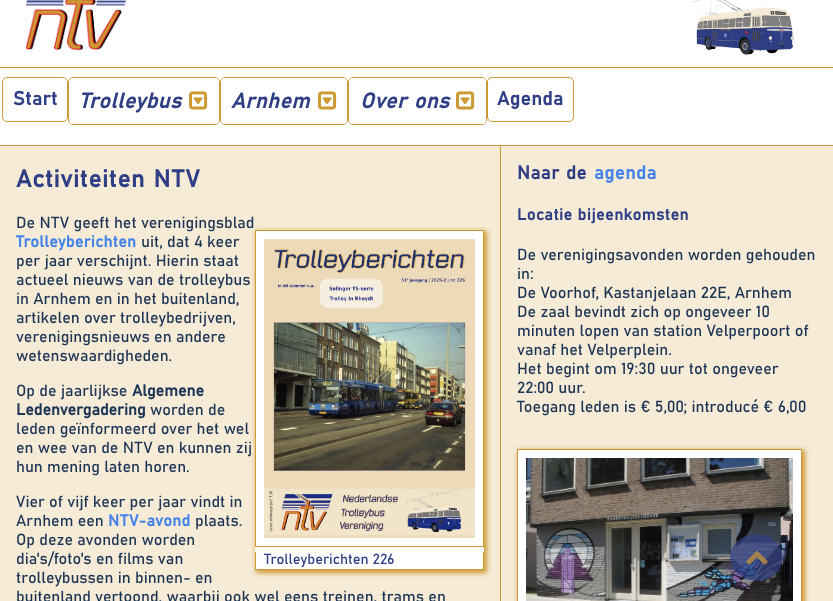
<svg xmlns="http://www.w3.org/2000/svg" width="833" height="601">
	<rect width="100%" height="100%" fill="#FFFFFF" />
	<rect x="0" y="67" width="833" height="1" fill="#CC9933" />
	<image x="25" y="0" width="102" height="51" href="assets/img1.png" />
	<image x="692" y="0" width="102" height="55" href="assets/img2.png" />
	<rect x="2.5" y="77.5" width="65" height="44" rx="4.5" fill="none" stroke="#CC9933" />
	<text x="13" y="105" font-family="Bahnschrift" font-size="19" font-weight="700" letter-spacing="0.5" fill="#303E85">Start</text>
	<rect x="68.5" y="77.5" width="151" height="47" rx="4.5" fill="none" stroke="#CC9933" />
	<rect x="69" y="78" width="150" height="46" rx="4" fill="#FFFFFF" />
	<text x="79" y="108" font-family="Bahnschrift" font-size="21" font-weight="700" font-style="italic" letter-spacing="0.6" fill="#303E85">Trolleybus</text>
	<image x="189" y="91" width="19" height="19" href="assets/img3.png" />
	<rect x="220.5" y="77.5" width="127" height="47" rx="4.5" fill="none" stroke="#CC9933" />
	<rect x="221" y="78" width="126" height="46" rx="4" fill="#FFFFFF" />
	<text x="231" y="108" font-family="Bahnschrift" font-size="21" font-weight="700" font-style="italic" letter-spacing="0.6" fill="#303E85">Arnhem</text>
	<image x="318" y="91" width="19" height="19" href="assets/img3.png" />
	<rect x="348.5" y="77.5" width="138" height="47" rx="4.5" fill="none" stroke="#CC9933" />
	<rect x="349" y="78" width="137" height="46" rx="4" fill="#FFFFFF" />
	<text x="360" y="108" word-spacing="1" font-family="Bahnschrift" font-size="21" font-weight="700" font-style="italic" letter-spacing="0.6" fill="#303E85">Over ons</text>
	<image x="456" y="91" width="19" height="19" href="assets/img3.png" />
	<rect x="487.5" y="77.5" width="86" height="44" rx="4.5" fill="none" stroke="#CC9933" />
	<text x="497" y="105" font-family="Bahnschrift" font-size="19" font-weight="700" letter-spacing="0.5" fill="#303E85">Agenda</text>
	<rect x="0" y="146" width="500" height="455" fill="#F5EBD6" />
	<rect x="0" y="145" width="833" height="1" fill="#CC9933" />
	<text x="16" y="187" word-spacing="1" font-family="Bahnschrift" font-size="24" font-weight="700" letter-spacing="0.75" fill="#303E85">Activiteiten NTV</text>
	<rect x="256" y="231" width="231" height="342" fill="#CC9933" filter="blur(2.5px)" />
	<text x="16" y="228" font-family="Bahnschrift" font-size="16" fill="#1E3555">De NTV geeft het verenigingsblad</text>
	<text x="16" y="247" font-family="Bahnschrift" font-size="16" font-weight="700" letter-spacing="0.3" fill="#4583E8">Trolleyberichten</text>
	<g font-family="Bahnschrift" font-size="16" fill="#1E3555">
		<text x="141" y="247">uit, dat 4 keer</text>
		<text x="16" y="266">per jaar verschijnt. Hierin staat</text>
		<text x="16" y="285">actueel nieuws van de trolleybus</text>
		<text x="16" y="304">in Arnhem en in het buitenland,</text>
		<text x="16" y="323">artikelen over trolleybedrijven,</text>
		<text x="16" y="342">verenigingsnieuws en andere</text>
		<text x="16" y="361">wetenswaardigheden.</text>
		<text x="16" y="396">Op de jaarlijkse</text>
	</g>
	<g font-family="Bahnschrift" font-size="16" font-weight="700" fill="#1E3555">
		<text x="132" y="396">Algemene</text>
		<text x="16" y="415">Ledenvergadering</text>
	</g>
	<g font-family="Bahnschrift" font-size="16" fill="#1E3555">
		<text x="150" y="415">worden de</text>
		<text x="16" y="434">leden geïnformeerd over het wel</text>
		<text x="16" y="453">en wee van de NTV en kunnen zij</text>
		<text x="16" y="472">hun mening laten horen.</text>
		<text x="16" y="507">Vier of vijf keer per jaar vindt in</text>
		<text x="16" y="526">Arnhem een</text>
	</g>
	<text x="108" y="526" font-family="Bahnschrift" font-size="16" font-weight="700" letter-spacing="0.3" fill="#4583E8">NTV-avond</text>
	<g font-family="Bahnschrift" font-size="16" fill="#1E3555">
		<text x="195" y="526">plaats.</text>
		<text x="16" y="545">Op deze avonden worden</text>
		<text x="16" y="564">dia's/foto's en films van</text>
		<text x="16" y="583">trolleybussen in binnen- en</text>
		<text x="16" y="602">buitenland vertoond, waarbij ook wel eens treinen, trams en</text>
	</g>
	<rect x="255" y="231" width="229" height="338" fill="#FFFFFF" />
	<rect x="255.5" y="230.5" width="228" height="316" fill="none" stroke="#CC9933" />
	<image x="264" y="239" width="211" height="299" href="assets/img4.png" />
	<rect x="483" y="552" width="1" height="18" fill="#CC9933" />
	<rect x="255" y="569" width="229" height="1" fill="#CC9933" />
	<rect x="255" y="552" width="1" height="18" fill="#CC9933" />
	<text x="264" y="564" font-family="Bahnschrift" font-size="14.5" fill="#303E85">Trolleyberichten 226</text>
	<rect x="501" y="146" width="332" height="455" fill="#F5EBD6" />
	<rect x="500" y="145" width="1" height="456" fill="#CC9933" />
	<text x="517" y="179" word-spacing="1" font-family="Bahnschrift" font-size="18.5" font-weight="700" letter-spacing="0.5" fill="#303E85">Naar de</text>
	<text x="594" y="179" font-family="Bahnschrift" font-size="18.5" font-weight="700" letter-spacing="0.5" fill="#4583E8">agenda</text>
	<text x="517" y="220" font-family="Bahnschrift" font-size="16" font-weight="700" letter-spacing="0.5" fill="#303E85">Locatie bijeenkomsten</text>
	<g font-family="Bahnschrift" font-size="16" fill="#1E3555">
		<text x="517" y="260">De verenigingsavonden worden gehouden</text>
		<text x="517" y="279">in:</text>
		<text x="517" y="298">De Voorhof, Kastanjelaan 22E, Arnhem</text>
		<text x="517" y="317">De zaal bevindt zich op ongeveer 10</text>
		<text x="517" y="336">minuten lopen van station Velperpoort of</text>
		<text x="517" y="355">vanaf het Velperplein.</text>
		<text x="517" y="374">Het begint om 19:30 uur tot ongeveer</text>
		<text x="517" y="393">22:00 uur.</text>
		<text x="517" y="412">Toegang leden is € 5,00; introducé € 6,00</text>
	</g>
	<rect x="518" y="450" width="287" height="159" fill="#CC9933" filter="blur(2.5px)" />
	<rect x="517.5" y="449.5" width="284" height="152" fill="#FFFFFF" stroke="#CC9933" />
	<image x="526" y="458" width="267" height="143" href="assets/img5.png" />
	<ellipse cx="756.5" cy="557.5" rx="26.5" ry="23.5" fill="#303E85" fill-opacity="0.7" />
	<image x="746" y="551" width="22" height="14" href="assets/img6.png" />
</svg>
